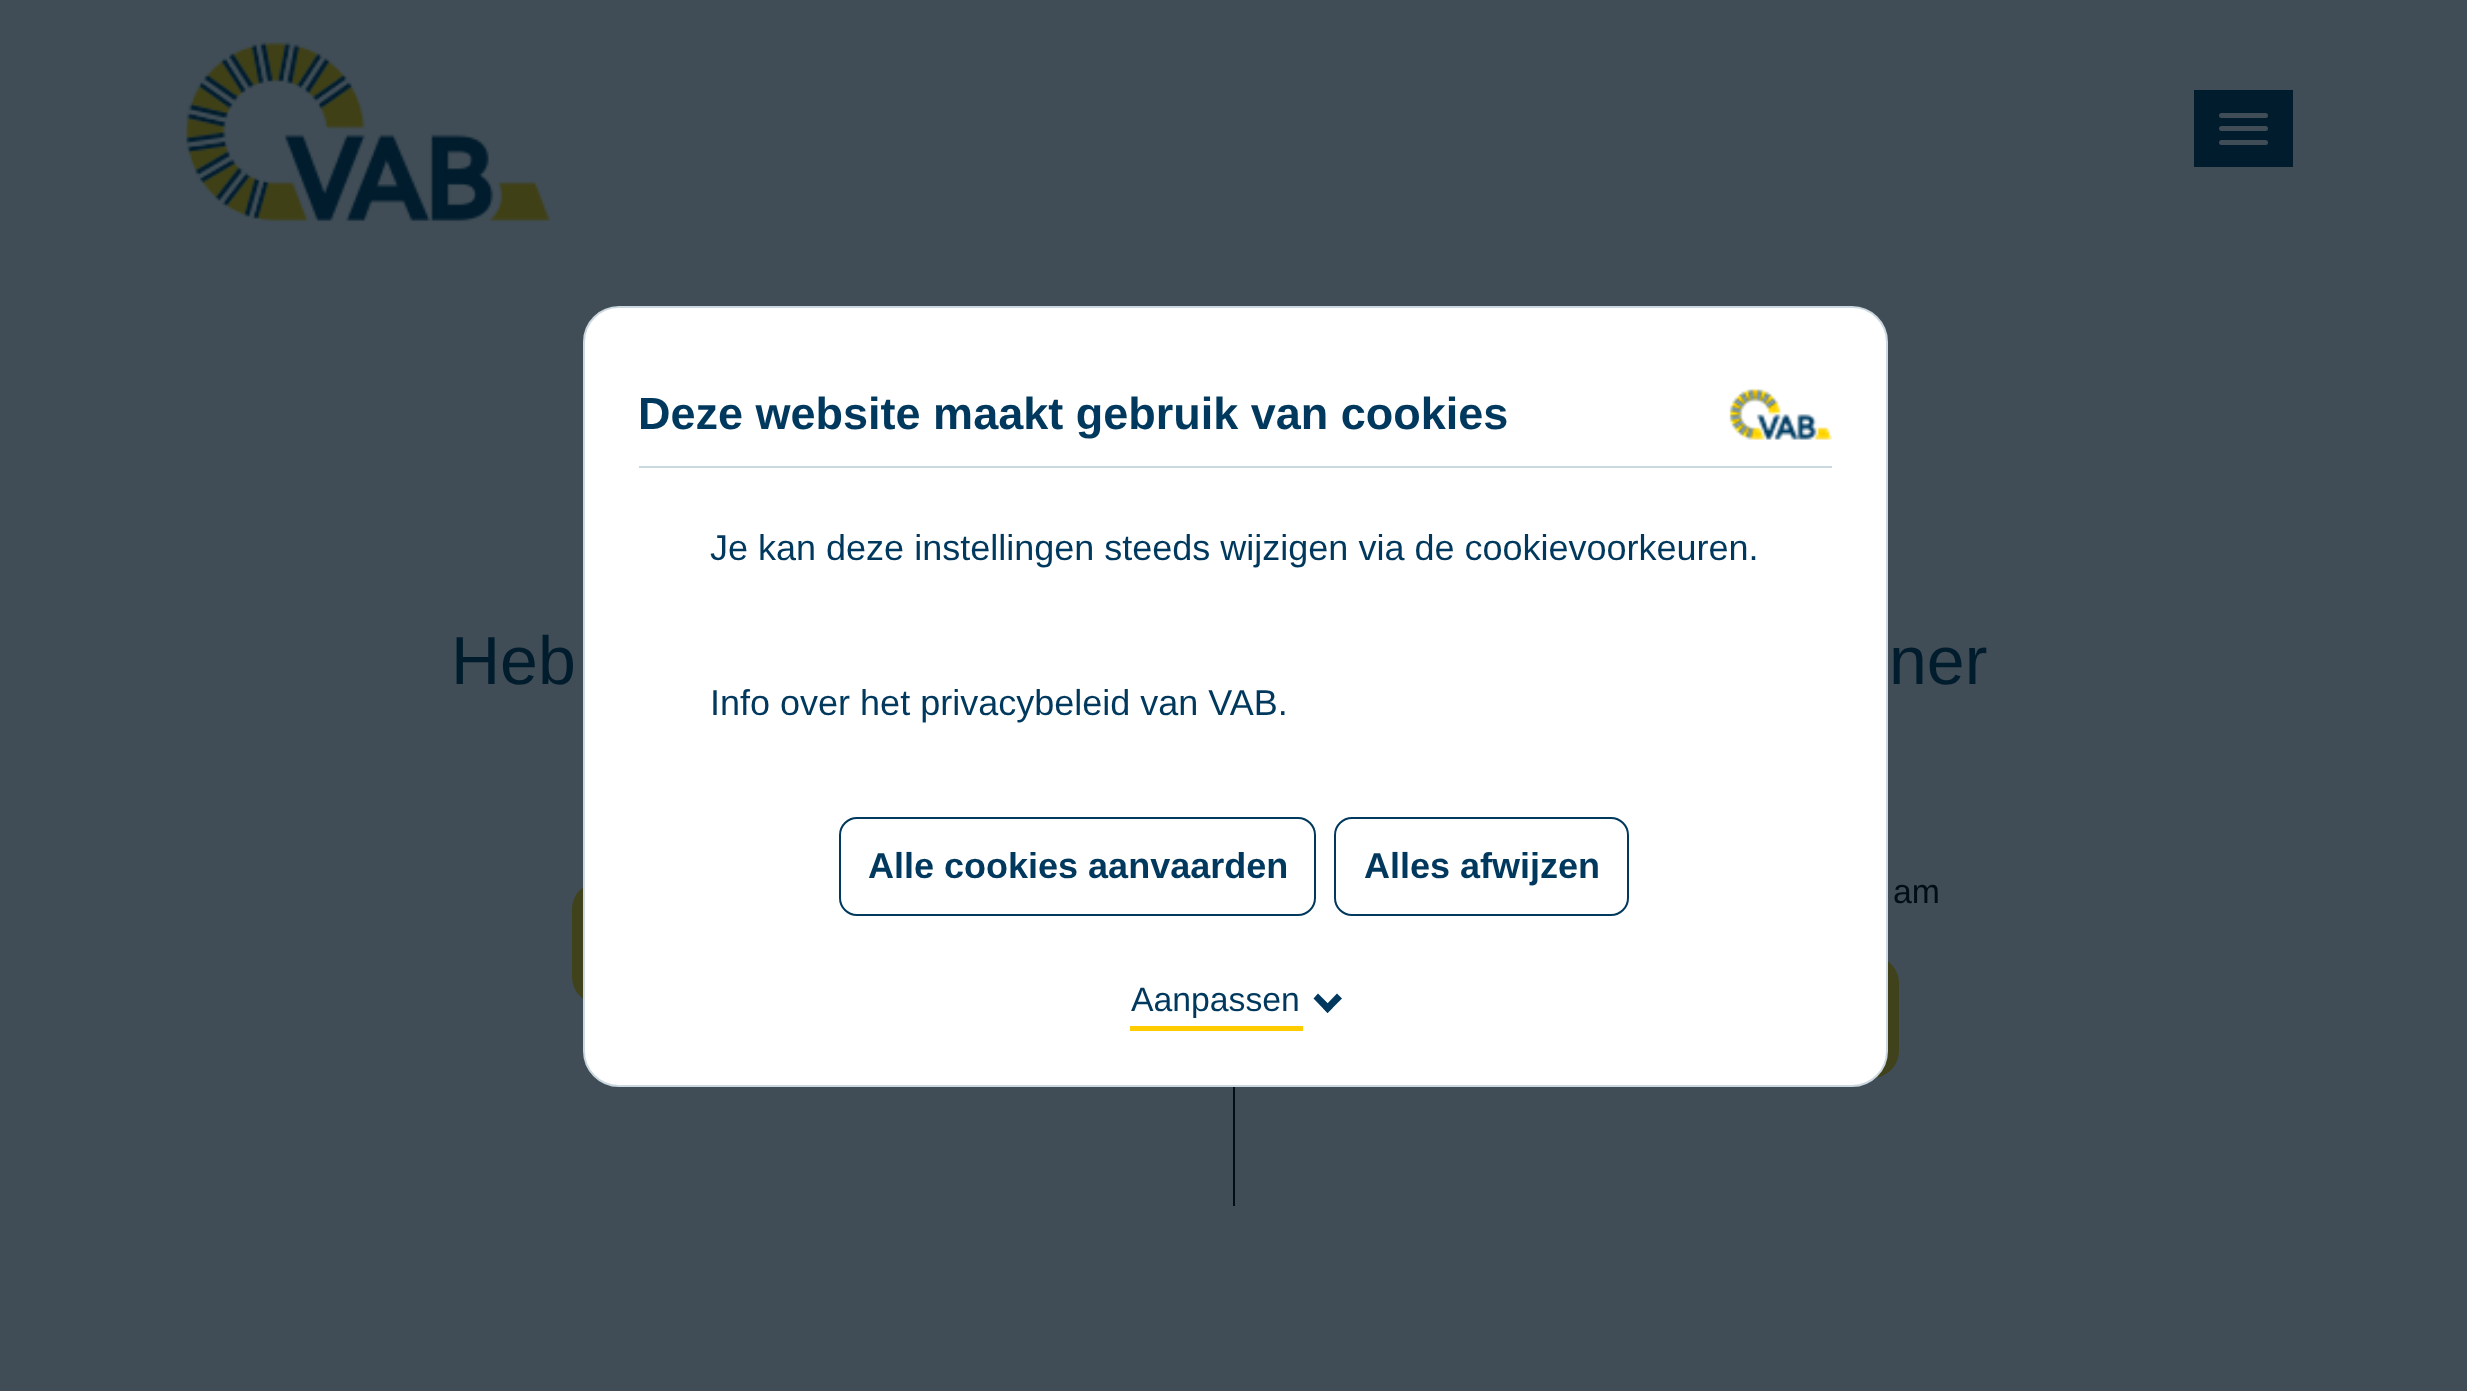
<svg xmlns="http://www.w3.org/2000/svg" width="2467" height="1391">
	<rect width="100%" height="100%" fill="#404D56" />
	<image x="186" y="42" width="364" height="180" href="assets/img1.png" />
	<rect x="2194" y="90" width="99" height="77" fill="#001C2D" />
	<rect x="2219" y="113" width="49" height="5" rx="2.5" fill="#404D56" />
	<rect x="2219" y="126" width="49" height="5" rx="2.5" fill="#404D56" />
	<rect x="2219" y="140" width="49" height="5" rx="2.5" fill="#404D56" />
	<rect x="572" y="882" width="450" height="122" rx="27" fill="#40421C" />
	<rect x="1449" y="956" width="450" height="122" rx="27" fill="#40421C" />
	<rect x="584" y="307" width="1303" height="779" rx="35" fill="#FFFFFF" stroke="#CCD8DF" stroke-width="2" />
	<rect x="639" y="466" width="1193" height="2" fill="#CCD8DF" />
	<text x="638" y="429" font-family="Liberation Sans" font-size="45" font-weight="700" fill="#00395D">Deze website maakt gebruik van cookies</text>
	<image x="1729" y="387" width="103" height="53" href="assets/img2.png" />
	<g font-family="Liberation Sans" font-size="36" fill="#00395D">
		<text x="710" y="560">Je kan deze instellingen steeds wijzigen via de cookievoorkeuren.</text>
		<text x="710" y="715">Info over het privacybeleid van VAB.</text>
	</g>
	<rect x="840" y="818" width="475" height="97" rx="17" fill="none" stroke="#00395D" stroke-width="2" />
	<text x="868" y="878" font-family="Liberation Sans" font-size="36" font-weight="700" fill="#00395D">Alle cookies aanvaarden</text>
	<rect x="1335" y="818" width="293" height="97" rx="17" fill="none" stroke="#00395D" stroke-width="2" />
	<text x="1364" y="878" font-family="Liberation Sans" font-size="36" font-weight="700" fill="#00395D">Alles afwijzen</text>
	<text x="1131" y="1011" font-family="Liberation Sans" font-size="33.75" fill="#00395D">Aanpassen</text>
	<path d="M1337 993.5L1342 998.5L1327.5 1013L1323 1008Z" fill="#00395D" />
	<path d="M1318 993.5L1332.5 1008L1327.5 1013L1313.5 998.5Z" fill="#00395D" />
	<rect x="1130" y="1026" width="173" height="5" fill="#FFCC00" />
	<text x="451" y="684" font-family="Liberation Sans" font-size="68" fill="#001C2D">Heb</text>
	<rect x="1233" y="1087" width="2" height="119" fill="#000E16" />
	<text x="1889" y="684" font-family="Liberation Sans" font-size="68" fill="#001C2D">ner</text>
	<text x="1893" y="903" font-family="Liberation Sans" font-size="33.75" fill="#000E16">am</text>
</svg>
